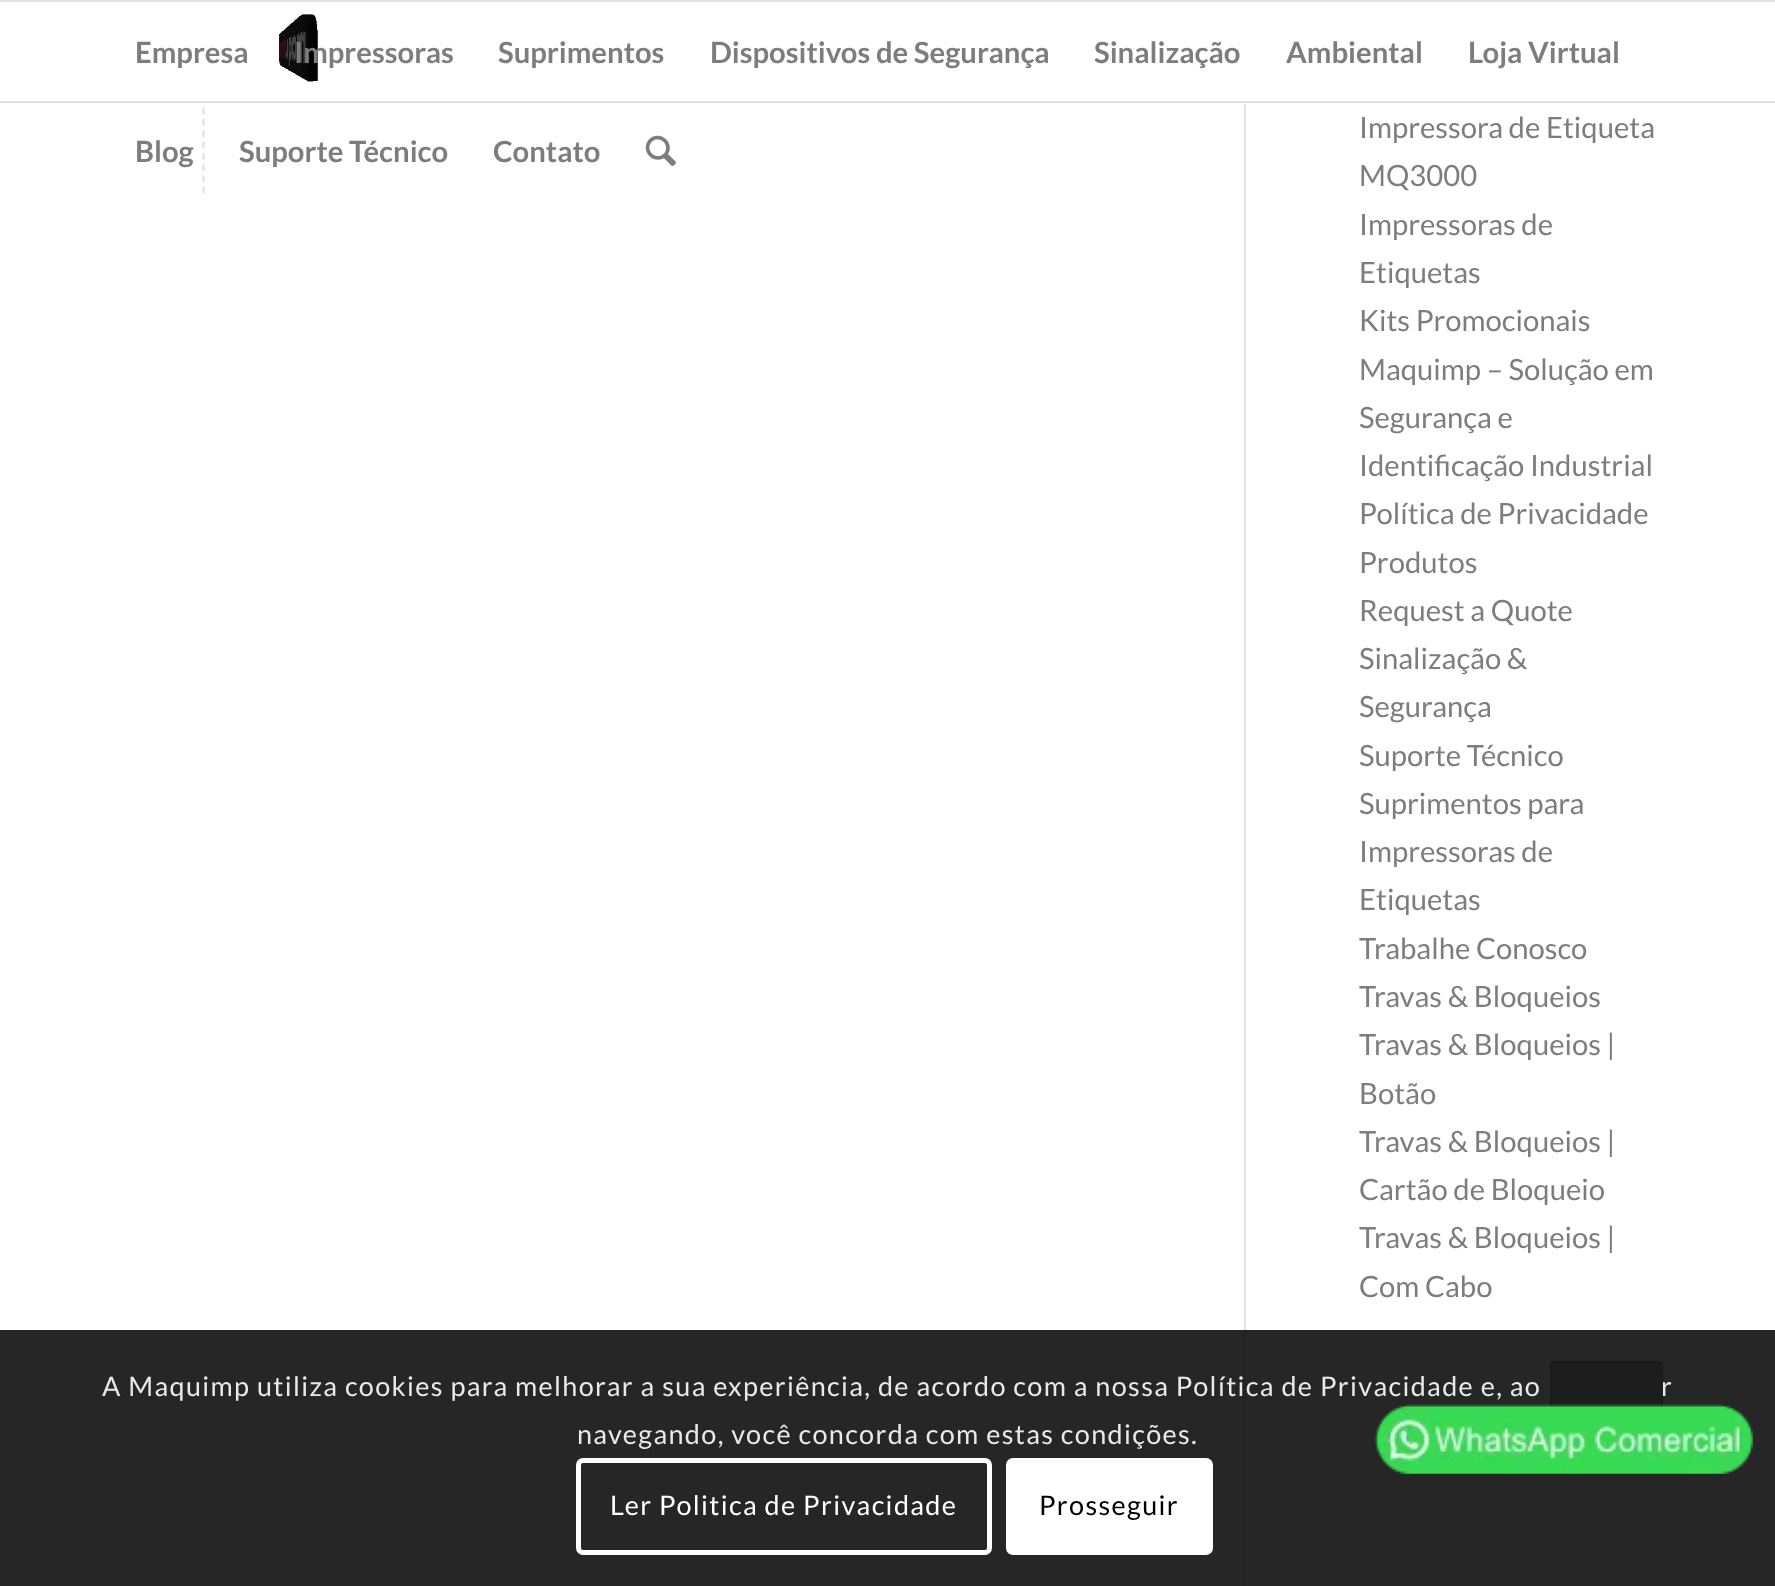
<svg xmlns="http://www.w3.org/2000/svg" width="1775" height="1586">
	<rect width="100%" height="100%" fill="#FFFFFF" />
	<path d="M203.5-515V193.5" fill="none" stroke="#E1E1E1" stroke-width="2.2" stroke-dasharray="6.75 4.57" />
	<rect x="202" y="5" width="3" height="98" fill="#FFFFFF" />
	<rect x="0" y="0" width="1775" height="2" fill="#E1E1E1" />
	<rect x="0" y="101" width="1775" height="2" fill="#E1E1E1" />
	<image x="279" y="14" width="39" height="68" href="assets/img1.png" />
	<g font-family="Lato" font-size="29.25" font-weight="700" fill="#7D7D7D">
		<text x="135" y="63">Empresa</text>
		<text x="294" y="63">Impressoras</text>
		<text x="498" y="63">Suprimentos</text>
		<text x="710" y="63">Dispositivos de Segurança</text>
		<text x="1094" y="63">Sinalização</text>
		<text x="1286" y="63">Ambiental</text>
		<text x="1468" y="63">Loja Virtual</text>
		<text x="135" y="162">Blog</text>
		<text x="239" y="162">Suporte Técnico</text>
		<text x="493" y="162">Contato</text>
	</g>
	<image x="645" y="135" width="31" height="31" href="assets/img2.png" />
	<rect x="1244" y="104" width="2" height="1482" fill="#E1E1E1" />
	<g font-family="Lato" font-size="29.25" fill="#7D7D7D">
		<text x="1359" y="138">Impressora de Etiqueta</text>
		<text x="1359" y="186">MQ3000</text>
		<text x="1359" y="235">Impressoras de</text>
		<text x="1359" y="283">Etiquetas</text>
		<text x="1359" y="331">Kits Promocionais</text>
		<text x="1359" y="380">Maquimp – Solução em</text>
		<text x="1359" y="428">Segurança e</text>
		<text x="1359" y="476">Identificação Industrial</text>
		<text x="1359" y="524">Política de Privacidade</text>
		<text x="1359" y="573">Produtos</text>
		<text x="1359" y="621">Request a Quote</text>
		<text x="1359" y="669">Sinalização &amp;</text>
		<text x="1359" y="717">Segurança</text>
		<text x="1359" y="766">Suporte Técnico</text>
		<text x="1359" y="814">Suprimentos para</text>
		<text x="1359" y="862">Impressoras de</text>
		<text x="1359" y="910">Etiquetas</text>
		<text x="1359" y="959">Trabalhe Conosco</text>
		<text x="1359" y="1007">Travas &amp; Bloqueios</text>
		<text x="1359" y="1055">Travas &amp; Bloqueios |</text>
		<text x="1359" y="1104">Botão</text>
		<text x="1359" y="1152">Travas &amp; Bloqueios |</text>
		<text x="1359" y="1200">Cartão de Bloqueio</text>
		<text x="1359" y="1248">Travas &amp; Bloqueios |</text>
		<text x="1359" y="1297">Com Cabo</text>
	</g>
	<rect x="0" y="1330" width="1775" height="256" fill="#000000" fill-opacity="0.85" />
	<rect x="1550" y="1361" width="113" height="113" rx="5" fill="#191919" fill-opacity="0.7" />
	<rect x="1551" y="1362" width="111" height="111" rx="4" fill="none" stroke="#191919" stroke-opacity="0.7" stroke-width="2" />
	<g font-family="Lato" font-size="27" letter-spacing="1.35" fill="#E9E9E9">
		<text x="102" y="1396">A Maquimp utiliza cookies para melhorar a sua experiência, de acordo com a nossa Política de Privacidade e, ao</text>
		<text x="1661" y="1396">r</text>
		<text x="577" y="1444">navegando, você concorda com estas condições.</text>
	</g>
	<rect x="578.5" y="1460.5" width="411" height="92" rx="4.5" fill="none" stroke="#FFFFFF" stroke-width="5" />
	<text x="610" y="1515" font-family="Lato" font-size="27" letter-spacing="1.35" fill="#FFFFFF">Ler Politica de Privacidade</text>
	<rect x="1006" y="1458" width="207" height="97" rx="7" fill="#FFFFFF" />
	<text x="1039" y="1515" font-family="Lato" font-size="27" letter-spacing="1.35" fill="#000000">Prosseguir</text>
	<image x="1374" y="1404" width="379" height="70" href="assets/img3.png" />
</svg>
